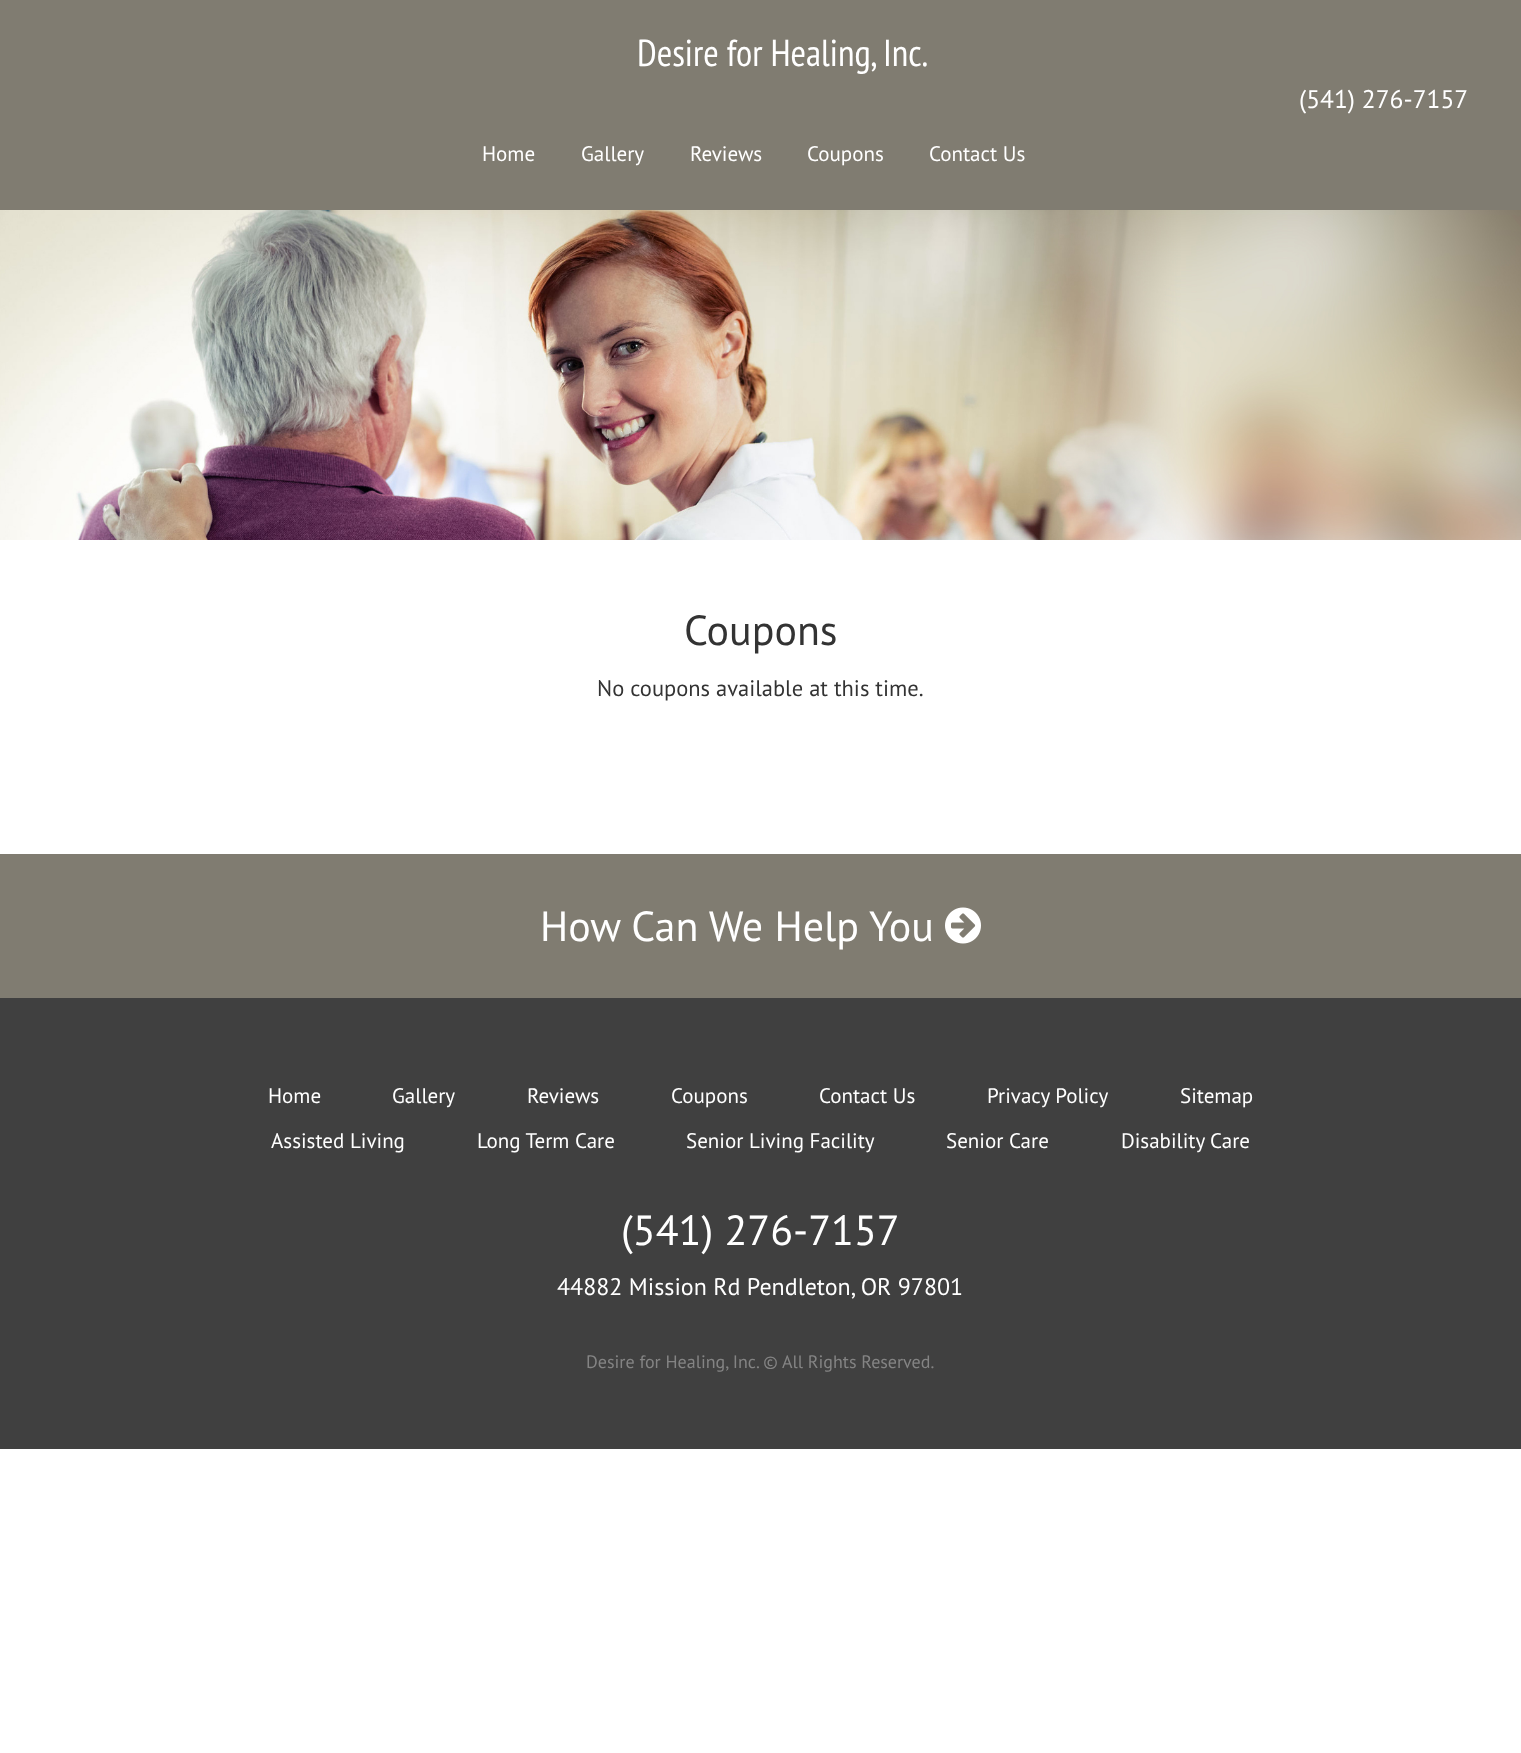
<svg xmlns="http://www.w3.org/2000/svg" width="1521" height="1753">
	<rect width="100%" height="100%" fill="#FFFFFF" />
	<rect x="0" y="0" width="1521" height="210" fill="#807C71" />
	<text x="637" y="66" font-family="PT Sans Narrow" font-size="37.5" fill="#FFFFFF">Desire for Healing, Inc.</text>
	<text x="1299" y="108" font-family="PT Sans" font-size="25.5" fill="#FFFFFF">(541) 276-7157</text>
	<g font-family="PT Sans" font-size="21" fill="#FFFFFF">
		<text x="482" y="161">Home</text>
		<text x="581" y="161">Gallery</text>
		<text x="690" y="161">Reviews</text>
		<text x="807" y="161">Coupons</text>
		<text x="929" y="161">Contact Us</text>
	</g>
	<image x="0" y="210" width="1521" height="330" href="assets/img1.png" />
	<text x="684" y="645" font-family="PT Sans" font-size="42" fill="#333333">Coupons</text>
	<text x="597" y="696" font-family="PT Sans" font-size="22.5" fill="#333333">No coupons available at this time.</text>
	<rect x="0" y="854" width="1521" height="144" fill="#807C71" />
	<text x="540" y="941" font-family="PT Sans" font-size="42" fill="#FFFFFF">How Can We Help You</text>
	<image x="945" y="907" width="36" height="37" href="assets/img2.png" />
	<rect x="0" y="998" width="1521" height="451" fill="#404040" />
	<g font-family="PT Sans" font-size="21" fill="#FFFFFF">
		<text x="268" y="1103">Home</text>
		<text x="392" y="1103">Gallery</text>
		<text x="527" y="1103">Reviews</text>
		<text x="671" y="1103">Coupons</text>
		<text x="819" y="1103">Contact Us</text>
		<text x="987" y="1103">Privacy Policy</text>
		<text x="1180" y="1103">Sitemap</text>
		<text x="271" y="1148">Assisted Living</text>
		<text x="477" y="1148">Long Term Care</text>
		<text x="686" y="1148">Senior Living Facility</text>
		<text x="946" y="1148">Senior Care</text>
		<text x="1121" y="1148">Disability Care</text>
	</g>
	<text x="621" y="1245" font-family="PT Sans" font-size="42" fill="#FFFFFF">(541) 276-7157</text>
	<text x="557" y="1295" font-family="PT Sans" font-size="24" fill="#FFFFFF">44882 Mission Rd Pendleton, OR 97801</text>
	<text x="586" y="1368" font-family="PT Sans" font-size="18" fill="#848484">Desire for Healing, Inc. © All Rights Reserved.</text>
</svg>
